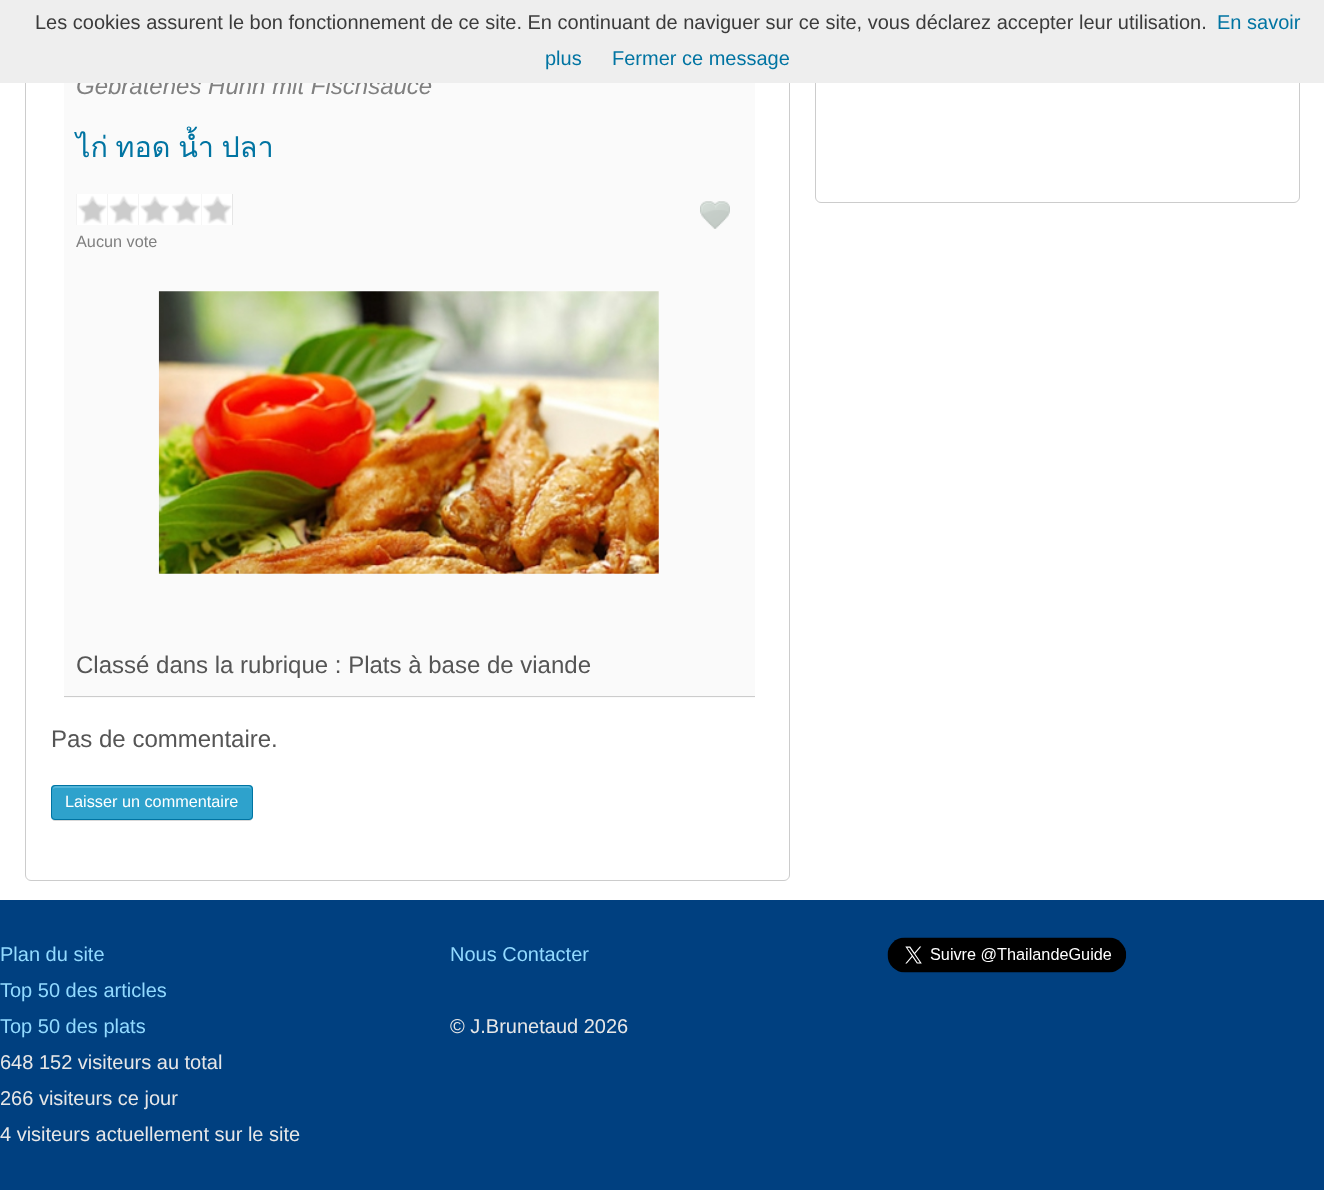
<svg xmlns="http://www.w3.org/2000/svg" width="1324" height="1190">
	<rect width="100%" height="100%" fill="#FFFFFF" />
	<rect x="25.5" y="-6.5" width="764" height="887" rx="5.5" fill="none" stroke="#CCCCCC" />
	<rect x="64" y="83" width="691" height="615" fill="#FAFAFA" />
	<text x="76" y="94" font-family="Liberation Sans" font-size="24" font-style="italic" fill="#808080">Gebratenes Huhn mit Fischsauce</text>
	<rect x="815.5" y="-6.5" width="484" height="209" rx="5.5" fill="none" stroke="#CCCCCC" />
	<rect x="0" y="0" width="1324" height="83" fill="#EEEEEE" />
	<text x="35" y="29" font-family="Liberation Sans" font-size="20" fill="#3B3B3B">Les cookies assurent le bon fonctionnement de ce site. En continuant de naviguer sur ce site, vous déclarez accepter leur utilisation.</text>
	<g font-family="Liberation Sans" font-size="20" fill="#0074A2">
		<text x="1217" y="29">En savoir</text>
		<text x="545" y="65">plus</text>
		<text x="612" y="65">Fermer ce message</text>
	</g>
	<rect x="64" y="696" width="691" height="1" fill="#CCCCCC" />
	<text x="76" y="157" word-spacing="-2" font-family="Loma" font-size="28.75" fill="#0074A2">ไก่ ทอด น้ำ ปลา</text>
	<image x="700" y="201" width="30" height="28" href="assets/img1.png" />
	<rect x="76" y="194" width="157" height="31" fill="#CCCCCC" />
	<image x="76" y="194" width="32" height="31" href="assets/img2.png" />
	<image x="107" y="194" width="32" height="31" href="assets/img3.png" />
	<image x="139" y="194" width="31" height="31" href="assets/img4.png" />
	<image x="170" y="194" width="32" height="31" href="assets/img5.png" />
	<image x="201" y="194" width="32" height="31" href="assets/img6.png" />
	<text x="76" y="247" font-family="Liberation Sans" font-size="16.25" fill="#808080">Aucun vote</text>
	<image x="158" y="291" width="501" height="283" href="assets/img7.png" />
	<g font-family="Liberation Sans" font-size="24" fill="#555555">
		<text x="76" y="673">Classé dans la rubrique : Plats à base de viande</text>
		<text x="51" y="747">Pas de commentaire.</text>
	</g>
	<path d="M51 789V817C51 819 53 821 55 821H249C251 821 253 819 253 817V790L252 788V807C252 810 255 820 249 820H55C50 820 51 815 51 812Z" fill="#D9D9D9" />
	<rect x="51" y="785" width="202" height="35" rx="4" fill="#2EA2CC" />
	<path d="M55 788H249L251 789V790C251 788 251 786 249 786H56C54 786 53 787 53 789Z" fill="#53B5D9" />
	<rect x="51.5" y="785.5" width="201" height="34" rx="3.5" fill="none" stroke="#0074A2" />
	<text x="65" y="807" font-family="Liberation Sans" font-size="16.25" fill="#FFFFFF">Laisser un commentaire</text>
	<rect x="0" y="900" width="1324" height="290" fill="#004080" />
	<g font-family="Liberation Sans" font-size="20" fill="#92DAFF">
		<text x="0" y="961">Plan du site</text>
		<text x="0" y="997">Top 50 des articles</text>
		<text x="0" y="1033">Top 50 des plats</text>
	</g>
	<g font-family="Liberation Sans" font-size="20" fill="#E7E7E7">
		<text x="0" y="1069">648 152 visiteurs au total</text>
		<text x="0" y="1105">266 visiteurs ce jour</text>
		<text x="0" y="1141">4 visiteurs actuellement sur le site</text>
	</g>
	<text x="450" y="961" font-family="Liberation Sans" font-size="20" fill="#92DAFF">Nous Contacter</text>
	<text x="450" y="1033" font-family="Liberation Sans" font-size="20" fill="#E7E7E7">© J.Brunetaud 2026</text>
	<image x="887" y="937" width="240" height="36" href="assets/img8.png" />
</svg>
